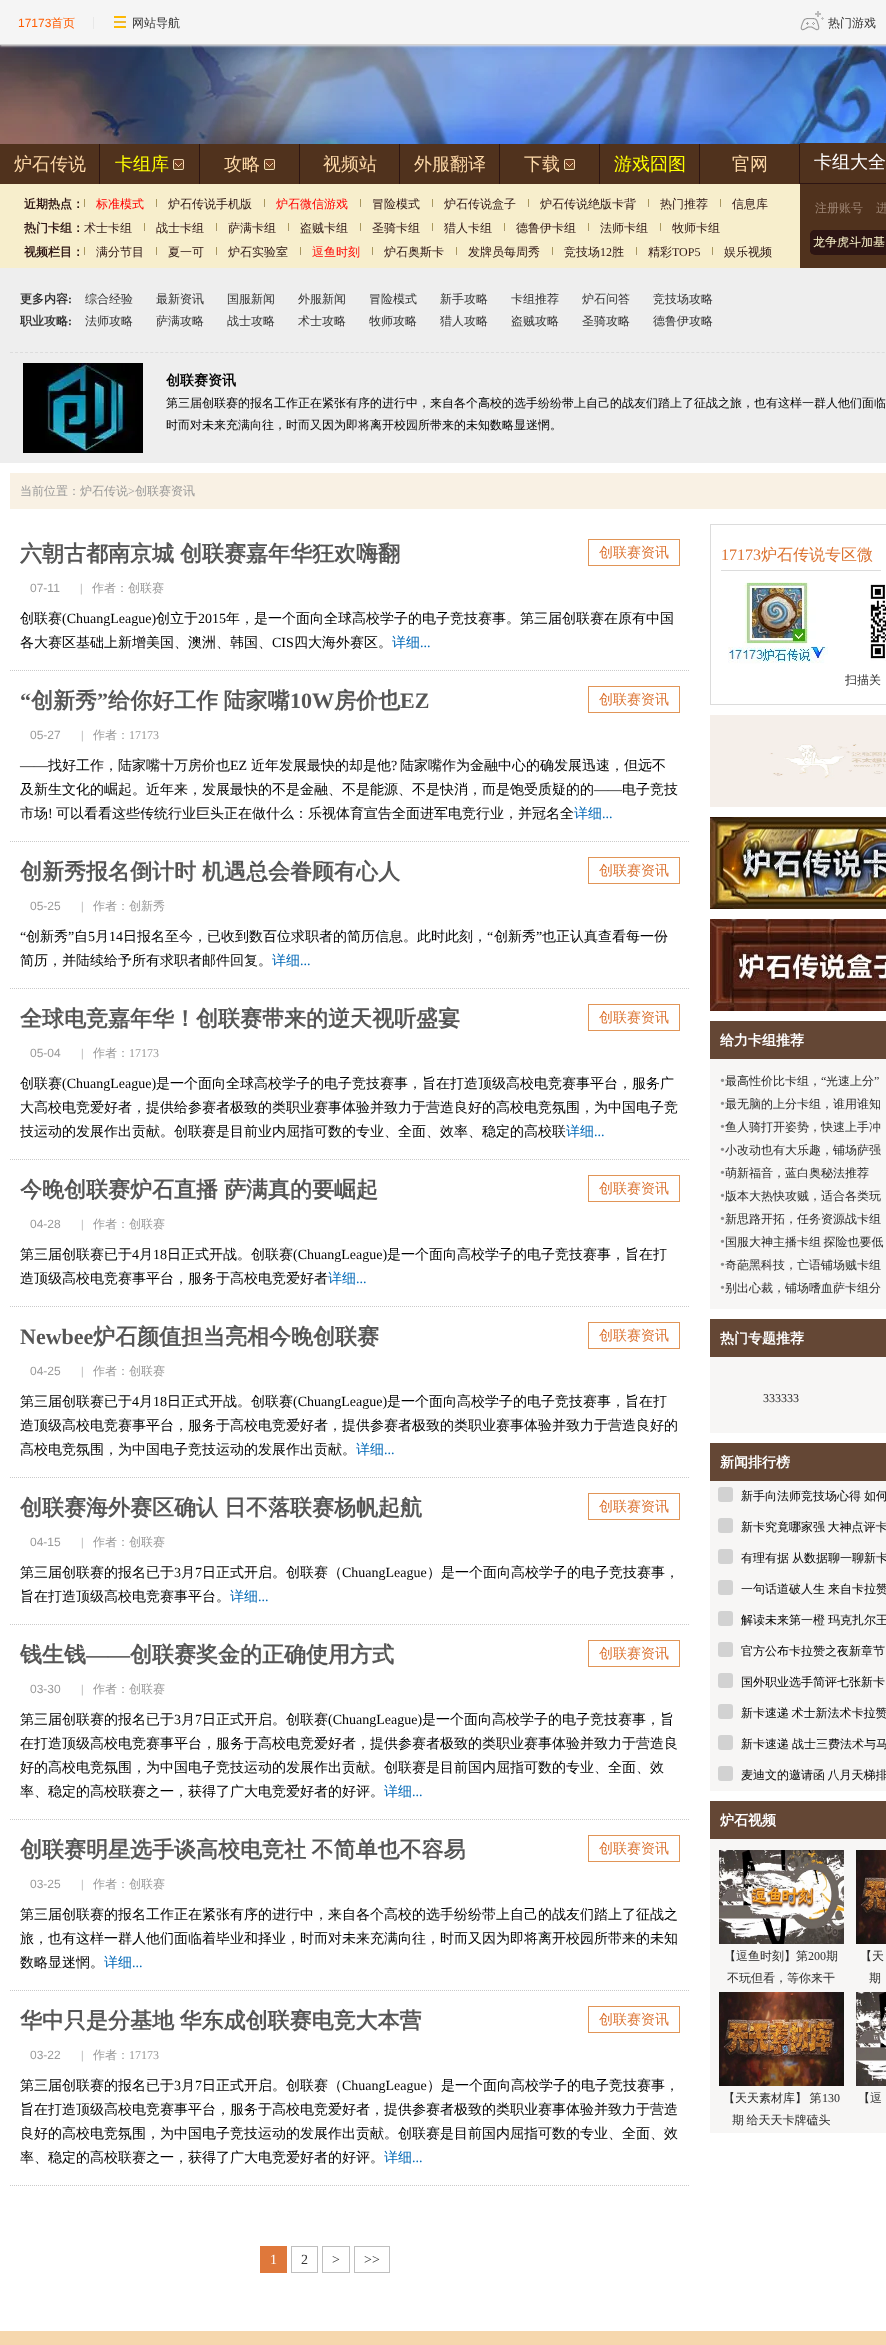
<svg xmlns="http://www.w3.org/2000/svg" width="886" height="2345">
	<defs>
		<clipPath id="clip1"><rect x="810" y="230" width="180" height="25" rx="5" /></clipPath>
	</defs>
	<rect width="100%" height="100%" fill="#F6D7AD" />
	<image x="0" y="45" width="886" height="99" href="assets/img3.png" />
	<rect x="0" y="1" width="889" height="45" fill="#E8E6E6" filter="blur(1px)" />
	<rect x="0" y="0" width="886" height="44" fill="#F5F5F5" />
	<rect x="0" y="44" width="886" height="1" fill="#D2D2D2" />
	<text x="18" y="27" font-family="Liberation Sans" font-size="12" fill="#FF5C00">17173</text>
	<text x="51" y="27" font-family="WenQuanYi Zen Hei" font-size="12" font-weight="500" fill="#FF5C00">首页</text>
	<rect x="93" y="17" width="1" height="12" fill="#E8E8E8" />
	<image x="114" y="16" width="12" height="12" href="assets/img1.png" />
	<text x="132" y="27" font-family="WenQuanYi Zen Hei" font-size="12" font-weight="500" fill="#333333">网站导航</text>
	<image x="800" y="11" width="24" height="20" href="assets/img2.png" />
	<text x="828" y="27" font-family="WenQuanYi Zen Hei" font-size="12" font-weight="500" fill="#333333">热门游戏</text>
	<rect x="0" y="144" width="99" height="40" fill="#50321D" />
	<rect x="99" y="144" width="1" height="40" fill="#2D1513" />
	<text x="14" y="170" font-family="WenQuanYi Zen Hei" font-size="18" font-weight="500" fill="#FED9A8">炉石传说</text>
	<rect x="100" y="144" width="99" height="40" fill="#50321D" />
	<rect x="199" y="144" width="1" height="40" fill="#2D1513" />
	<text x="115" y="170" font-family="WenQuanYi Zen Hei" font-size="18" font-weight="500" fill="#FFFF00">卡组库</text>
	<image x="173" y="159" width="11" height="11" href="assets/img4.png" />
	<rect x="200" y="144" width="99" height="40" fill="#50321D" />
	<rect x="299" y="144" width="1" height="40" fill="#2D1513" />
	<text x="224" y="170" font-family="WenQuanYi Zen Hei" font-size="18" font-weight="500" fill="#FED9A8">攻略</text>
	<image x="264" y="159" width="11" height="11" href="assets/img4.png" />
	<rect x="300" y="144" width="99" height="40" fill="#50321D" />
	<rect x="399" y="144" width="1" height="40" fill="#2D1513" />
	<text x="323" y="170" font-family="WenQuanYi Zen Hei" font-size="18" font-weight="500" fill="#FED9A8">视频站</text>
	<rect x="400" y="144" width="99" height="40" fill="#50321D" />
	<rect x="499" y="144" width="1" height="40" fill="#2D1513" />
	<text x="414" y="170" font-family="WenQuanYi Zen Hei" font-size="18" font-weight="500" fill="#FED9A8">外服翻译</text>
	<rect x="500" y="144" width="99" height="40" fill="#50321D" />
	<rect x="599" y="144" width="1" height="40" fill="#2D1513" />
	<text x="524" y="170" font-family="WenQuanYi Zen Hei" font-size="18" font-weight="500" fill="#FED9A8">下载</text>
	<image x="564" y="159" width="11" height="11" href="assets/img4.png" />
	<rect x="600" y="144" width="99" height="40" fill="#50321D" />
	<rect x="699" y="144" width="1" height="40" fill="#2D1513" />
	<text x="614" y="170" font-family="WenQuanYi Zen Hei" font-size="18" font-weight="500" fill="#FFFF00">游戏囧图</text>
	<rect x="700" y="144" width="99" height="40" fill="#50321D" />
	<rect x="799" y="144" width="1" height="40" fill="#2D1513" />
	<text x="732" y="170" font-family="WenQuanYi Zen Hei" font-size="18" font-weight="500" fill="#FED9A8">官网</text>
	<rect x="800" y="143" width="86" height="125" fill="#50321D" />
	<rect x="800" y="183" width="86" height="1" fill="#2D1513" />
	<text x="814" y="168" font-family="WenQuanYi Zen Hei" font-size="18" font-weight="500" fill="#FFFFFF">卡组大全</text>
	<g font-family="WenQuanYi Zen Hei" font-size="12" font-weight="500" fill="#9D8473">
		<text x="815" y="212">注册账号</text>
		<text x="876" y="212">进</text>
	</g>
	<rect x="810" y="230" width="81" height="25" rx="5" fill="#2D1513" />
	<g clip-path="url(#clip1)">
		<path d="M815 230H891V254H810V235C810 232 812 230 815 230Z" fill="#2D1513" />
	</g>
	<text x="813" y="246" font-family="WenQuanYi Zen Hei" font-size="12" font-weight="500" fill="#FFF9CF">龙争虎斗加基</text>
	<rect x="0" y="184" width="800" height="84" fill="#F7EECC" />
	<text x="24" y="208" font-family="WenQuanYi Zen Hei" font-size="12" font-weight="700" fill="#2D1513">近期热点：</text>
	<image x="84" y="199" width="1" height="8" href="assets/img5.png" />
	<text x="96" y="208" font-family="WenQuanYi Zen Hei" font-size="12" font-weight="500" fill="#FF0000">标准模式</text>
	<image x="156" y="199" width="1" height="8" href="assets/img5.png" />
	<text x="168" y="208" font-family="WenQuanYi Zen Hei" font-size="12" font-weight="500" fill="#2D1513">炉石传说手机版</text>
	<image x="264" y="199" width="1" height="8" href="assets/img5.png" />
	<text x="276" y="208" font-family="WenQuanYi Zen Hei" font-size="12" font-weight="500" fill="#FF0000">炉石微信游戏</text>
	<image x="360" y="199" width="1" height="8" href="assets/img5.png" />
	<text x="372" y="208" font-family="WenQuanYi Zen Hei" font-size="12" font-weight="500" fill="#2D1513">冒险模式</text>
	<image x="432" y="199" width="1" height="8" href="assets/img5.png" />
	<text x="444" y="208" font-family="WenQuanYi Zen Hei" font-size="12" font-weight="500" fill="#2D1513">炉石传说盒子</text>
	<image x="528" y="199" width="1" height="8" href="assets/img5.png" />
	<text x="540" y="208" font-family="WenQuanYi Zen Hei" font-size="12" font-weight="500" fill="#2D1513">炉石传说绝版卡背</text>
	<image x="648" y="199" width="1" height="8" href="assets/img5.png" />
	<text x="660" y="208" font-family="WenQuanYi Zen Hei" font-size="12" font-weight="500" fill="#2D1513">热门推荐</text>
	<image x="720" y="199" width="1" height="8" href="assets/img5.png" />
	<text x="732" y="208" font-family="WenQuanYi Zen Hei" font-size="12" font-weight="500" fill="#2D1513">信息库</text>
	<text x="24" y="232" font-family="WenQuanYi Zen Hei" font-size="12" font-weight="700" fill="#2D1513">热门卡组：</text>
	<text x="84" y="232" font-family="WenQuanYi Zen Hei" font-size="12" font-weight="500" fill="#2D1513">术士卡组</text>
	<image x="144" y="223" width="1" height="8" href="assets/img5.png" />
	<text x="156" y="232" font-family="WenQuanYi Zen Hei" font-size="12" font-weight="500" fill="#2D1513">战士卡组</text>
	<image x="216" y="223" width="1" height="8" href="assets/img5.png" />
	<text x="228" y="232" font-family="WenQuanYi Zen Hei" font-size="12" font-weight="500" fill="#2D1513">萨满卡组</text>
	<image x="288" y="223" width="1" height="8" href="assets/img5.png" />
	<text x="300" y="232" font-family="WenQuanYi Zen Hei" font-size="12" font-weight="500" fill="#2D1513">盗贼卡组</text>
	<image x="360" y="223" width="1" height="8" href="assets/img5.png" />
	<text x="372" y="232" font-family="WenQuanYi Zen Hei" font-size="12" font-weight="500" fill="#2D1513">圣骑卡组</text>
	<image x="432" y="223" width="1" height="8" href="assets/img5.png" />
	<text x="444" y="232" font-family="WenQuanYi Zen Hei" font-size="12" font-weight="500" fill="#2D1513">猎人卡组</text>
	<image x="504" y="223" width="1" height="8" href="assets/img5.png" />
	<text x="516" y="232" font-family="WenQuanYi Zen Hei" font-size="12" font-weight="500" fill="#2D1513">德鲁伊卡组</text>
	<image x="588" y="223" width="1" height="8" href="assets/img5.png" />
	<text x="600" y="232" font-family="WenQuanYi Zen Hei" font-size="12" font-weight="500" fill="#2D1513">法师卡组</text>
	<image x="660" y="223" width="1" height="8" href="assets/img5.png" />
	<text x="672" y="232" font-family="WenQuanYi Zen Hei" font-size="12" font-weight="500" fill="#2D1513">牧师卡组</text>
	<text x="24" y="256" font-family="WenQuanYi Zen Hei" font-size="12" font-weight="700" fill="#2D1513">视频栏目：</text>
	<image x="84" y="247" width="1" height="8" href="assets/img5.png" />
	<text x="96" y="256" font-family="WenQuanYi Zen Hei" font-size="12" font-weight="500" fill="#2D1513">满分节目</text>
	<image x="156" y="247" width="1" height="8" href="assets/img5.png" />
	<text x="168" y="256" font-family="WenQuanYi Zen Hei" font-size="12" font-weight="500" fill="#2D1513">夏一可</text>
	<image x="216" y="247" width="1" height="8" href="assets/img5.png" />
	<text x="228" y="256" font-family="WenQuanYi Zen Hei" font-size="12" font-weight="500" fill="#2D1513">炉石实验室</text>
	<image x="300" y="247" width="1" height="8" href="assets/img5.png" />
	<text x="312" y="256" font-family="WenQuanYi Zen Hei" font-size="12" font-weight="500" fill="#FF0000">逗鱼时刻</text>
	<image x="372" y="247" width="1" height="8" href="assets/img5.png" />
	<text x="384" y="256" font-family="WenQuanYi Zen Hei" font-size="12" font-weight="500" fill="#2D1513">炉石奥斯卡</text>
	<image x="456" y="247" width="1" height="8" href="assets/img5.png" />
	<text x="468" y="256" font-family="WenQuanYi Zen Hei" font-size="12" font-weight="500" fill="#2D1513">发牌员每周秀</text>
	<image x="552" y="247" width="1" height="8" href="assets/img5.png" />
	<text x="564" y="256" font-family="WenQuanYi Zen Hei" font-size="12" font-weight="500" fill="#2D1513">竞技场</text>
	<text x="600" y="256" font-family="Liberation Serif" font-size="12" fill="#2D1513">12</text>
	<text x="612" y="256" font-family="WenQuanYi Zen Hei" font-size="12" font-weight="500" fill="#2D1513">胜</text>
	<image x="636" y="247" width="1" height="8" href="assets/img5.png" />
	<text x="648" y="256" font-family="WenQuanYi Zen Hei" font-size="12" font-weight="500" fill="#2D1513">精彩</text>
	<text x="672" y="256" font-family="Liberation Serif" font-size="12" fill="#2D1513">TOP5</text>
	<image x="712" y="247" width="1" height="8" href="assets/img5.png" />
	<text x="724" y="256" font-family="WenQuanYi Zen Hei" font-size="12" font-weight="500" fill="#2D1513">娱乐视频</text>
	<rect x="0" y="268" width="886" height="195" fill="#EEEEEE" />
	<text x="20" y="303" font-family="WenQuanYi Zen Hei" font-size="12" font-weight="700" fill="#333333">更多内容</text>
	<text x="68" y="303" font-family="Liberation Serif" font-size="12" font-weight="700" fill="#333333">:</text>
	<g font-family="WenQuanYi Zen Hei" font-size="12" font-weight="500" fill="#333333">
		<text x="85" y="303">综合经验</text>
		<text x="156" y="303">最新资讯</text>
		<text x="227" y="303">国服新闻</text>
		<text x="298" y="303">外服新闻</text>
		<text x="369" y="303">冒险模式</text>
		<text x="440" y="303">新手攻略</text>
		<text x="511" y="303">卡组推荐</text>
		<text x="582" y="303">炉石问答</text>
		<text x="653" y="303">竞技场攻略</text>
	</g>
	<text x="20" y="325" font-family="WenQuanYi Zen Hei" font-size="12" font-weight="700" fill="#333333">职业攻略</text>
	<text x="68" y="325" font-family="Liberation Serif" font-size="12" font-weight="700" fill="#333333">:</text>
	<g font-family="WenQuanYi Zen Hei" font-size="12" font-weight="500" fill="#333333">
		<text x="85" y="325">法师攻略</text>
		<text x="156" y="325">萨满攻略</text>
		<text x="227" y="325">战士攻略</text>
		<text x="298" y="325">术士攻略</text>
		<text x="369" y="325">牧师攻略</text>
		<text x="440" y="325">猎人攻略</text>
		<text x="511" y="325">盗贼攻略</text>
		<text x="582" y="325">圣骑攻略</text>
		<text x="653" y="325">德鲁伊攻略</text>
	</g>
	<path d="M10 352.5H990" fill="none" stroke="#DCDCDC" stroke-dasharray="3 2.01" />
	<image x="23" y="363" width="120" height="90" href="assets/img6.png" />
	<text x="166" y="385" font-family="WenQuanYi Zen Hei" font-size="14" font-weight="700" fill="#000000">创联赛资讯</text>
	<g font-family="WenQuanYi Zen Hei" font-size="12" font-weight="500" fill="#000000">
		<text x="166" y="407">第三届创联赛的报名工作正在紧张有序的进行中，来自各个高校的选手纷纷带上自己的战友们踏上了征战之旅，也有这样一群人他们面临</text>
		<text x="166" y="429">时而对未来充满向往，时而又因为即将离开校园所带来的未知数略显迷惘。</text>
	</g>
	<rect x="0" y="463" width="886" height="1868" fill="#FFFFFF" />
	<rect x="10" y="473" width="876" height="36" fill="#F9F1E4" />
	<text x="20" y="495" font-family="WenQuanYi Zen Hei" font-size="12" font-weight="500" fill="#999999">当前位置：炉石传说</text>
	<text x="128" y="495" font-family="Liberation Serif" font-size="12" fill="#999999">&gt;</text>
	<text x="135" y="495" font-family="WenQuanYi Zen Hei" font-size="12" font-weight="500" fill="#999999">创联赛资讯</text>
	<path d="M10 670.5H690" fill="none" stroke="#CACACA" stroke-dasharray="1 1" />
	<g font-family="WenQuanYi Zen Hei" font-size="22" font-weight="700" fill="#565656">
		<text x="20" y="561">六朝古都南京城</text>
		<text x="180" y="561">创联赛嘉年华狂欢嗨翻</text>
	</g>
	<rect x="588.5" y="539.5" width="91" height="26" fill="none" stroke="#E19557" />
	<text x="599" y="557" font-family="WenQuanYi Zen Hei" font-size="14" font-weight="500" fill="#DC722F">创联赛资讯</text>
	<text x="30" y="592" font-family="Liberation Sans" font-size="12" fill="#999999">07-11</text>
	<text x="80" y="592" font-family="Liberation Serif" font-size="12" fill="#999999">|</text>
	<text x="92" y="592" font-family="WenQuanYi Zen Hei" font-size="12" font-weight="500" fill="#999999">作者：创联赛</text>
	<text x="20" y="623" font-family="WenQuanYi Zen Hei" font-size="14" font-weight="500" fill="#000000">创联赛</text>
	<text x="62" y="623" font-family="Liberation Serif" font-size="14" fill="#000000">(ChuangLeague)</text>
	<text x="156" y="623" font-family="WenQuanYi Zen Hei" font-size="14" font-weight="500" fill="#000000">创立于</text>
	<text x="198" y="623" font-family="Liberation Serif" font-size="14" fill="#000000">2015</text>
	<g font-family="WenQuanYi Zen Hei" font-size="14" font-weight="500" fill="#000000">
		<text x="226" y="623">年，是一个面向全球高校学子的电子竞技赛事。第三届创联赛在原有中国</text>
		<text x="20" y="647">各大赛区基础上新增美国、澳洲、韩国、</text>
	</g>
	<text x="272" y="647" font-family="Liberation Serif" font-size="14" fill="#000000">CIS</text>
	<text x="294" y="647" font-family="WenQuanYi Zen Hei" font-size="14" font-weight="500" fill="#000000">四大海外赛区。</text>
	<text x="392" y="647" font-family="WenQuanYi Zen Hei" font-size="14" font-weight="500" fill="#0068B7">详细</text>
	<text x="420" y="647" font-family="Liberation Serif" font-size="14" fill="#0068B7">...</text>
	<path d="M10 841.5H690" fill="none" stroke="#CACACA" stroke-dasharray="1 1" />
	<text x="20" y="708" font-family="Liberation Serif" font-size="22" font-weight="700" fill="#565656">“</text>
	<text x="31" y="708" font-family="WenQuanYi Zen Hei" font-size="22" font-weight="700" fill="#565656">创新秀</text>
	<text x="97" y="708" font-family="Liberation Serif" font-size="22" font-weight="700" fill="#565656">”</text>
	<text x="108" y="708" word-spacing="-1" font-family="WenQuanYi Zen Hei" font-size="22" font-weight="700" fill="#565656">给你好工作 陆家嘴</text>
	<text x="290" y="708" font-family="Liberation Serif" font-size="22" font-weight="700" fill="#565656">10W</text>
	<text x="334" y="708" font-family="WenQuanYi Zen Hei" font-size="22" font-weight="700" fill="#565656">房价也</text>
	<text x="400" y="708" font-family="Liberation Serif" font-size="22" font-weight="700" fill="#565656">EZ</text>
	<rect x="588.5" y="686.5" width="91" height="26" fill="none" stroke="#E19557" />
	<text x="599" y="704" font-family="WenQuanYi Zen Hei" font-size="14" font-weight="500" fill="#DC722F">创联赛资讯</text>
	<text x="30" y="739" font-family="Liberation Sans" font-size="12" fill="#999999">05-27</text>
	<text x="81" y="739" font-family="Liberation Serif" font-size="12" fill="#999999">|</text>
	<text x="93" y="739" font-family="WenQuanYi Zen Hei" font-size="12" font-weight="500" fill="#999999">作者：</text>
	<text x="129" y="739" font-family="Liberation Serif" font-size="12" fill="#999999">17173</text>
	<text x="20" y="770" font-family="Liberation Serif" font-size="14" fill="#000000">——</text>
	<text x="48" y="770" font-family="WenQuanYi Zen Hei" font-size="14" font-weight="500" fill="#000000">找好工作，陆家嘴十万房价也</text>
	<text x="230" y="770" font-family="Liberation Serif" font-size="14" fill="#000000">EZ</text>
	<text x="251" y="770" font-family="WenQuanYi Zen Hei" font-size="14" font-weight="500" fill="#000000">近年发展最快的却是他</text>
	<text x="391" y="770" font-family="Liberation Serif" font-size="14" fill="#000000">?</text>
	<g font-family="WenQuanYi Zen Hei" font-size="14" font-weight="500" fill="#000000">
		<text x="400" y="770">陆家嘴作为金融中心的确发展迅速，但远不</text>
		<text x="20" y="794">及新生文化的崛起。近年来，发展最快的不是金融、不是能源、不是快消，而是饱受质疑的的</text>
	</g>
	<text x="594" y="794" font-family="Liberation Serif" font-size="14" fill="#000000">——</text>
	<g font-family="WenQuanYi Zen Hei" font-size="14" font-weight="500" fill="#000000">
		<text x="622" y="794">电子竞技</text>
		<text x="20" y="818">市场</text>
	</g>
	<text x="48" y="818" font-family="Liberation Serif" font-size="14" fill="#000000">!</text>
	<text x="56" y="818" font-family="WenQuanYi Zen Hei" font-size="14" font-weight="500" fill="#000000">可以看看这些传统行业巨头正在做什么：乐视体育宣告全面进军电竞行业，并冠名全</text>
	<text x="574" y="818" font-family="WenQuanYi Zen Hei" font-size="14" font-weight="500" fill="#0068B7">详细</text>
	<text x="602" y="818" font-family="Liberation Serif" font-size="14" fill="#0068B7">...</text>
	<path d="M10 988.5H690" fill="none" stroke="#CACACA" stroke-dasharray="1 1" />
	<g font-family="WenQuanYi Zen Hei" font-size="22" font-weight="700" fill="#565656">
		<text x="20" y="879">创新秀报名倒计时</text>
		<text x="202" y="879">机遇总会眷顾有心人</text>
	</g>
	<rect x="588.5" y="857.5" width="91" height="26" fill="none" stroke="#E19557" />
	<text x="599" y="875" font-family="WenQuanYi Zen Hei" font-size="14" font-weight="500" fill="#DC722F">创联赛资讯</text>
	<text x="30" y="910" font-family="Liberation Sans" font-size="12" fill="#999999">05-25</text>
	<text x="81" y="910" font-family="Liberation Serif" font-size="12" fill="#999999">|</text>
	<text x="93" y="910" font-family="WenQuanYi Zen Hei" font-size="12" font-weight="500" fill="#999999">作者：创新秀</text>
	<text x="20" y="941" font-family="Liberation Serif" font-size="14" fill="#000000">“</text>
	<text x="26" y="941" font-family="WenQuanYi Zen Hei" font-size="14" font-weight="500" fill="#000000">创新秀</text>
	<text x="68" y="941" font-family="Liberation Serif" font-size="14" fill="#000000">”</text>
	<text x="74" y="941" font-family="WenQuanYi Zen Hei" font-size="14" font-weight="500" fill="#000000">自</text>
	<text x="88" y="941" font-family="Liberation Serif" font-size="14" fill="#000000">5</text>
	<text x="95" y="941" font-family="WenQuanYi Zen Hei" font-size="14" font-weight="500" fill="#000000">月</text>
	<text x="109" y="941" font-family="Liberation Serif" font-size="14" fill="#000000">14</text>
	<text x="123" y="941" font-family="WenQuanYi Zen Hei" font-size="14" font-weight="500" fill="#000000">日报名至今，已收到数百位求职者的简历信息。此时此刻，</text>
	<text x="487" y="941" font-family="Liberation Serif" font-size="14" fill="#000000">“</text>
	<text x="494" y="941" font-family="WenQuanYi Zen Hei" font-size="14" font-weight="500" fill="#000000">创新秀</text>
	<text x="536" y="941" font-family="Liberation Serif" font-size="14" fill="#000000">”</text>
	<g font-family="WenQuanYi Zen Hei" font-size="14" font-weight="500" fill="#000000">
		<text x="542" y="941">也正认真查看每一份</text>
		<text x="20" y="965">简历，并陆续给予所有求职者邮件回复。</text>
	</g>
	<text x="272" y="965" font-family="WenQuanYi Zen Hei" font-size="14" font-weight="500" fill="#0068B7">详细</text>
	<text x="300" y="965" font-family="Liberation Serif" font-size="14" fill="#0068B7">...</text>
	<path d="M10 1159.5H690" fill="none" stroke="#CACACA" stroke-dasharray="1 1" />
	<text x="20" y="1026" font-family="WenQuanYi Zen Hei" font-size="22" font-weight="700" fill="#565656">全球电竞嘉年华！创联赛带来的逆天视听盛宴</text>
	<rect x="588.5" y="1004.5" width="91" height="26" fill="none" stroke="#E19557" />
	<text x="599" y="1022" font-family="WenQuanYi Zen Hei" font-size="14" font-weight="500" fill="#DC722F">创联赛资讯</text>
	<text x="30" y="1057" font-family="Liberation Sans" font-size="12" fill="#999999">05-04</text>
	<text x="81" y="1057" font-family="Liberation Serif" font-size="12" fill="#999999">|</text>
	<text x="93" y="1057" font-family="WenQuanYi Zen Hei" font-size="12" font-weight="500" fill="#999999">作者：</text>
	<text x="129" y="1057" font-family="Liberation Serif" font-size="12" fill="#999999">17173</text>
	<text x="20" y="1088" font-family="WenQuanYi Zen Hei" font-size="14" font-weight="500" fill="#000000">创联赛</text>
	<text x="62" y="1088" font-family="Liberation Serif" font-size="14" fill="#000000">(ChuangLeague)</text>
	<g font-family="WenQuanYi Zen Hei" font-size="14" font-weight="500" fill="#000000">
		<text x="156" y="1088">是一个面向全球高校学子的电子竞技赛事，旨在打造顶级高校电竞赛事平台，服务广</text>
		<text x="20" y="1112">大高校电竞爱好者，提供给参赛者极致的类职业赛事体验并致力于营造良好的高校电竞氛围，为中国电子竞</text>
		<text x="20" y="1136">技运动的发展作出贡献。创联赛是目前业内屈指可数的专业、全面、效率、稳定的高校联</text>
	</g>
	<text x="566" y="1136" font-family="WenQuanYi Zen Hei" font-size="14" font-weight="500" fill="#0068B7">详细</text>
	<text x="594" y="1136" font-family="Liberation Serif" font-size="14" fill="#0068B7">...</text>
	<path d="M10 1306.5H690" fill="none" stroke="#CACACA" stroke-dasharray="1 1" />
	<g font-family="WenQuanYi Zen Hei" font-size="22" font-weight="700" fill="#565656">
		<text x="20" y="1197">今晚创联赛炉石直播</text>
		<text x="224" y="1197">萨满真的要崛起</text>
	</g>
	<rect x="588.5" y="1175.5" width="91" height="26" fill="none" stroke="#E19557" />
	<text x="599" y="1193" font-family="WenQuanYi Zen Hei" font-size="14" font-weight="500" fill="#DC722F">创联赛资讯</text>
	<text x="30" y="1228" font-family="Liberation Sans" font-size="12" fill="#999999">04-28</text>
	<text x="81" y="1228" font-family="Liberation Serif" font-size="12" fill="#999999">|</text>
	<text x="93" y="1228" font-family="WenQuanYi Zen Hei" font-size="12" font-weight="500" fill="#999999">作者：创联赛</text>
	<text x="20" y="1259" font-family="WenQuanYi Zen Hei" font-size="14" font-weight="500" fill="#000000">第三届创联赛已于</text>
	<text x="132" y="1259" font-family="Liberation Serif" font-size="14" fill="#000000">4</text>
	<text x="139" y="1259" font-family="WenQuanYi Zen Hei" font-size="14" font-weight="500" fill="#000000">月</text>
	<text x="153" y="1259" font-family="Liberation Serif" font-size="14" fill="#000000">18</text>
	<text x="167" y="1259" font-family="WenQuanYi Zen Hei" font-size="14" font-weight="500" fill="#000000">日正式开战。创联赛</text>
	<text x="293" y="1259" font-family="Liberation Serif" font-size="14" fill="#000000">(ChuangLeague)</text>
	<g font-family="WenQuanYi Zen Hei" font-size="14" font-weight="500" fill="#000000">
		<text x="387" y="1259">是一个面向高校学子的电子竞技赛事，旨在打</text>
		<text x="20" y="1283">造顶级高校电竞赛事平台，服务于高校电竞爱好者</text>
	</g>
	<text x="328" y="1283" font-family="WenQuanYi Zen Hei" font-size="14" font-weight="500" fill="#0068B7">详细</text>
	<text x="356" y="1283" font-family="Liberation Serif" font-size="14" fill="#0068B7">...</text>
	<path d="M10 1477.5H690" fill="none" stroke="#CACACA" stroke-dasharray="1 1" />
	<text x="20" y="1344" font-family="Liberation Serif" font-size="22" font-weight="700" fill="#565656">Newbee</text>
	<text x="93" y="1344" font-family="WenQuanYi Zen Hei" font-size="22" font-weight="700" fill="#565656">炉石颜值担当亮相今晚创联赛</text>
	<rect x="588.5" y="1322.5" width="91" height="26" fill="none" stroke="#E19557" />
	<text x="599" y="1340" font-family="WenQuanYi Zen Hei" font-size="14" font-weight="500" fill="#DC722F">创联赛资讯</text>
	<text x="30" y="1375" font-family="Liberation Sans" font-size="12" fill="#999999">04-25</text>
	<text x="81" y="1375" font-family="Liberation Serif" font-size="12" fill="#999999">|</text>
	<text x="93" y="1375" font-family="WenQuanYi Zen Hei" font-size="12" font-weight="500" fill="#999999">作者：创联赛</text>
	<text x="20" y="1406" font-family="WenQuanYi Zen Hei" font-size="14" font-weight="500" fill="#000000">第三届创联赛已于</text>
	<text x="132" y="1406" font-family="Liberation Serif" font-size="14" fill="#000000">4</text>
	<text x="139" y="1406" font-family="WenQuanYi Zen Hei" font-size="14" font-weight="500" fill="#000000">月</text>
	<text x="153" y="1406" font-family="Liberation Serif" font-size="14" fill="#000000">18</text>
	<text x="167" y="1406" font-family="WenQuanYi Zen Hei" font-size="14" font-weight="500" fill="#000000">日正式开战。创联赛</text>
	<text x="293" y="1406" font-family="Liberation Serif" font-size="14" fill="#000000">(ChuangLeague)</text>
	<g font-family="WenQuanYi Zen Hei" font-size="14" font-weight="500" fill="#000000">
		<text x="387" y="1406">是一个面向高校学子的电子竞技赛事，旨在打</text>
		<text x="20" y="1430">造顶级高校电竞赛事平台，服务于高校电竞爱好者，提供参赛者极致的类职业赛事体验并致力于营造良好的</text>
		<text x="20" y="1454">高校电竞氛围，为中国电子竞技运动的发展作出贡献。</text>
	</g>
	<text x="356" y="1454" font-family="WenQuanYi Zen Hei" font-size="14" font-weight="500" fill="#0068B7">详细</text>
	<text x="384" y="1454" font-family="Liberation Serif" font-size="14" fill="#0068B7">...</text>
	<path d="M10 1624.5H690" fill="none" stroke="#CACACA" stroke-dasharray="1 1" />
	<g font-family="WenQuanYi Zen Hei" font-size="22" font-weight="700" fill="#565656">
		<text x="20" y="1515">创联赛海外赛区确认</text>
		<text x="224" y="1515">日不落联赛杨帆起航</text>
	</g>
	<rect x="588.5" y="1493.5" width="91" height="26" fill="none" stroke="#E19557" />
	<text x="599" y="1511" font-family="WenQuanYi Zen Hei" font-size="14" font-weight="500" fill="#DC722F">创联赛资讯</text>
	<text x="30" y="1546" font-family="Liberation Sans" font-size="12" fill="#999999">04-15</text>
	<text x="81" y="1546" font-family="Liberation Serif" font-size="12" fill="#999999">|</text>
	<text x="93" y="1546" font-family="WenQuanYi Zen Hei" font-size="12" font-weight="500" fill="#999999">作者：创联赛</text>
	<text x="20" y="1577" font-family="WenQuanYi Zen Hei" font-size="14" font-weight="500" fill="#000000">第三届创联赛的报名已于</text>
	<text x="174" y="1577" font-family="Liberation Serif" font-size="14" fill="#000000">3</text>
	<text x="181" y="1577" font-family="WenQuanYi Zen Hei" font-size="14" font-weight="500" fill="#000000">月</text>
	<text x="195" y="1577" font-family="Liberation Serif" font-size="14" fill="#000000">7</text>
	<text x="202" y="1577" font-family="WenQuanYi Zen Hei" font-size="14" font-weight="500" fill="#000000">日正式开启。创联赛（</text>
	<text x="342" y="1577" font-family="Liberation Serif" font-size="14" fill="#000000">ChuangLeague</text>
	<g font-family="WenQuanYi Zen Hei" font-size="14" font-weight="500" fill="#000000">
		<text x="427" y="1577">）是一个面向高校学子的电子竞技赛事，</text>
		<text x="20" y="1601">旨在打造顶级高校电竞赛事平台。</text>
	</g>
	<text x="230" y="1601" font-family="WenQuanYi Zen Hei" font-size="14" font-weight="500" fill="#0068B7">详细</text>
	<text x="258" y="1601" font-family="Liberation Serif" font-size="14" fill="#0068B7">...</text>
	<path d="M10 1819.5H690" fill="none" stroke="#CACACA" stroke-dasharray="1 1" />
	<text x="20" y="1662" font-family="WenQuanYi Zen Hei" font-size="22" font-weight="700" fill="#565656">钱生钱</text>
	<text x="86" y="1662" font-family="Liberation Serif" font-size="22" font-weight="700" fill="#565656">——</text>
	<text x="130" y="1662" font-family="WenQuanYi Zen Hei" font-size="22" font-weight="700" fill="#565656">创联赛奖金的正确使用方式</text>
	<rect x="588.5" y="1640.5" width="91" height="26" fill="none" stroke="#E19557" />
	<text x="599" y="1658" font-family="WenQuanYi Zen Hei" font-size="14" font-weight="500" fill="#DC722F">创联赛资讯</text>
	<text x="30" y="1693" font-family="Liberation Sans" font-size="12" fill="#999999">03-30</text>
	<text x="81" y="1693" font-family="Liberation Serif" font-size="12" fill="#999999">|</text>
	<text x="93" y="1693" font-family="WenQuanYi Zen Hei" font-size="12" font-weight="500" fill="#999999">作者：创联赛</text>
	<text x="20" y="1724" font-family="WenQuanYi Zen Hei" font-size="14" font-weight="500" fill="#000000">第三届创联赛的报名已于</text>
	<text x="174" y="1724" font-family="Liberation Serif" font-size="14" fill="#000000">3</text>
	<text x="181" y="1724" font-family="WenQuanYi Zen Hei" font-size="14" font-weight="500" fill="#000000">月</text>
	<text x="195" y="1724" font-family="Liberation Serif" font-size="14" fill="#000000">7</text>
	<text x="202" y="1724" font-family="WenQuanYi Zen Hei" font-size="14" font-weight="500" fill="#000000">日正式开启。创联赛</text>
	<text x="328" y="1724" font-family="Liberation Serif" font-size="14" fill="#000000">(ChuangLeague)</text>
	<g font-family="WenQuanYi Zen Hei" font-size="14" font-weight="500" fill="#000000">
		<text x="422" y="1724">是一个面向高校学子的电子竞技赛事，旨</text>
		<text x="20" y="1748">在打造顶级高校电竞赛事平台，服务于高校电竞爱好者，提供参赛者极致的类职业赛事体验并致力于营造良</text>
		<text x="20" y="1772">好的高校电竞氛围，为中国电子竞技运动的发展作出贡献。创联赛是目前国内屈指可数的专业、全面、效</text>
		<text x="20" y="1796">率、稳定的高校联赛之一，获得了广大电竞爱好者的好评。</text>
	</g>
	<text x="384" y="1796" font-family="WenQuanYi Zen Hei" font-size="14" font-weight="500" fill="#0068B7">详细</text>
	<text x="412" y="1796" font-family="Liberation Serif" font-size="14" fill="#0068B7">...</text>
	<path d="M10 1990.5H690" fill="none" stroke="#CACACA" stroke-dasharray="1 1" />
	<text x="20" y="1857" word-spacing="-1" font-family="WenQuanYi Zen Hei" font-size="22" font-weight="700" fill="#565656">创联赛明星选手谈高校电竞社 不简单也不容易</text>
	<rect x="588.5" y="1835.5" width="91" height="26" fill="none" stroke="#E19557" />
	<text x="599" y="1853" font-family="WenQuanYi Zen Hei" font-size="14" font-weight="500" fill="#DC722F">创联赛资讯</text>
	<text x="30" y="1888" font-family="Liberation Sans" font-size="12" fill="#999999">03-25</text>
	<text x="81" y="1888" font-family="Liberation Serif" font-size="12" fill="#999999">|</text>
	<text x="93" y="1888" font-family="WenQuanYi Zen Hei" font-size="12" font-weight="500" fill="#999999">作者：创联赛</text>
	<g font-family="WenQuanYi Zen Hei" font-size="14" font-weight="500" fill="#000000">
		<text x="20" y="1919">第三届创联赛的报名工作正在紧张有序的进行中，来自各个高校的选手纷纷带上自己的战友们踏上了征战之</text>
		<text x="20" y="1943">旅，也有这样一群人他们面临着毕业和择业，时而对未来充满向往，时而又因为即将离开校园所带来的未知</text>
		<text x="20" y="1967">数略显迷惘。</text>
	</g>
	<text x="104" y="1967" font-family="WenQuanYi Zen Hei" font-size="14" font-weight="500" fill="#0068B7">详细</text>
	<text x="132" y="1967" font-family="Liberation Serif" font-size="14" fill="#0068B7">...</text>
	<path d="M10 2185.5H690" fill="none" stroke="#CACACA" stroke-dasharray="1 1" />
	<text x="20" y="2028" word-spacing="-1" font-family="WenQuanYi Zen Hei" font-size="22" font-weight="700" fill="#565656">华中只是分基地 华东成创联赛电竞大本营</text>
	<rect x="588.5" y="2006.5" width="91" height="26" fill="none" stroke="#E19557" />
	<text x="599" y="2024" font-family="WenQuanYi Zen Hei" font-size="14" font-weight="500" fill="#DC722F">创联赛资讯</text>
	<text x="30" y="2059" font-family="Liberation Sans" font-size="12" fill="#999999">03-22</text>
	<text x="81" y="2059" font-family="Liberation Serif" font-size="12" fill="#999999">|</text>
	<text x="93" y="2059" font-family="WenQuanYi Zen Hei" font-size="12" font-weight="500" fill="#999999">作者：</text>
	<text x="129" y="2059" font-family="Liberation Serif" font-size="12" fill="#999999">17173</text>
	<text x="20" y="2090" font-family="WenQuanYi Zen Hei" font-size="14" font-weight="500" fill="#000000">第三届创联赛的报名已于</text>
	<text x="174" y="2090" font-family="Liberation Serif" font-size="14" fill="#000000">3</text>
	<text x="181" y="2090" font-family="WenQuanYi Zen Hei" font-size="14" font-weight="500" fill="#000000">月</text>
	<text x="195" y="2090" font-family="Liberation Serif" font-size="14" fill="#000000">7</text>
	<text x="202" y="2090" font-family="WenQuanYi Zen Hei" font-size="14" font-weight="500" fill="#000000">日正式开启。创联赛（</text>
	<text x="342" y="2090" font-family="Liberation Serif" font-size="14" fill="#000000">ChuangLeague</text>
	<g font-family="WenQuanYi Zen Hei" font-size="14" font-weight="500" fill="#000000">
		<text x="427" y="2090">）是一个面向高校学子的电子竞技赛事，</text>
		<text x="20" y="2114">旨在打造顶级高校电竞赛事平台，服务于高校电竞爱好者，提供参赛者极致的类职业赛事体验并致力于营造</text>
		<text x="20" y="2138">良好的高校电竞氛围，为中国电子竞技运动的发展作出贡献。创联赛是目前国内屈指可数的专业、全面、效</text>
		<text x="20" y="2162">率、稳定的高校联赛之一，获得了广大电竞爱好者的好评。</text>
	</g>
	<text x="384" y="2162" font-family="WenQuanYi Zen Hei" font-size="14" font-weight="500" fill="#0068B7">详细</text>
	<text x="412" y="2162" font-family="Liberation Serif" font-size="14" fill="#0068B7">...</text>
	<rect x="260" y="2246" width="27" height="27" fill="#DF783B" />
	<text x="270" y="2264" font-family="Liberation Serif" font-size="14" fill="#FFFFFF">1</text>
	<rect x="291.5" y="2246.5" width="26" height="26" fill="none" stroke="#BFBFBF" />
	<text x="301" y="2264" font-family="Liberation Serif" font-size="14" fill="#333333">2</text>
	<rect x="322.5" y="2246.5" width="27" height="26" fill="none" stroke="#BFBFBF" />
	<text x="332" y="2264" font-family="Liberation Serif" font-size="14" fill="#333333">&gt;</text>
	<rect x="354.5" y="2246.5" width="35" height="26" fill="none" stroke="#BFBFBF" />
	<text x="364" y="2264" font-family="Liberation Serif" font-size="14" fill="#333333">&gt;&gt;</text>
	<rect x="710.5" y="524.5" width="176" height="180" fill="none" stroke="#DCDCDC" />
	<rect x="721" y="570" width="160" height="1" fill="#DCDCDC" />
	<text x="721" y="560" font-family="Liberation Serif" font-size="16" fill="#DC722F">17173</text>
	<text x="761" y="560" font-family="WenQuanYi Zen Hei" font-size="16" font-weight="500" fill="#DC722F">炉石传说专区微</text>
	<image x="728" y="582" width="100" height="82" href="assets/img7.png" />
	<image x="870" y="584" width="16" height="77" href="assets/img8.png" />
	<text x="845" y="684" font-family="WenQuanYi Zen Hei" font-size="12" font-weight="500" fill="#333333">扫描关</text>
	<image x="710" y="715" width="176" height="92" href="assets/img9.png" />
	<image x="710" y="817" width="176" height="92" href="assets/img10.png" />
	<image x="710" y="919" width="176" height="92" href="assets/img11.png" />
	<rect x="710" y="1059" width="176" height="250" fill="#F7F6F5" />
	<rect x="710" y="1021" width="176" height="38" fill="#644735" />
	<text x="720" y="1045" font-family="WenQuanYi Zen Hei" font-size="14" font-weight="700" fill="#FFFFFF">给力卡组推荐</text>
	<text x="720" y="1085" font-family="Liberation Serif" font-size="14" fill="#8E8E8E">•</text>
	<text x="725" y="1085" font-family="WenQuanYi Zen Hei" font-size="12" font-weight="500" fill="#2B2B2B">最高性价比卡组，</text>
	<text x="821" y="1085" font-family="Liberation Serif" font-size="12" fill="#2B2B2B">“</text>
	<text x="826" y="1085" font-family="WenQuanYi Zen Hei" font-size="12" font-weight="500" fill="#2B2B2B">光速上分</text>
	<text x="874" y="1085" font-family="Liberation Serif" font-size="12" fill="#2B2B2B">”</text>
	<text x="720" y="1108" font-family="Liberation Serif" font-size="14" fill="#8E8E8E">•</text>
	<text x="725" y="1108" font-family="WenQuanYi Zen Hei" font-size="12" font-weight="500" fill="#2B2B2B">最无脑的上分卡组，谁用谁知</text>
	<text x="720" y="1131" font-family="Liberation Serif" font-size="14" fill="#8E8E8E">•</text>
	<text x="725" y="1131" font-family="WenQuanYi Zen Hei" font-size="12" font-weight="500" fill="#2B2B2B">鱼人骑打开姿势，快速上手冲</text>
	<text x="720" y="1154" font-family="Liberation Serif" font-size="14" fill="#8E8E8E">•</text>
	<text x="725" y="1154" font-family="WenQuanYi Zen Hei" font-size="12" font-weight="500" fill="#2B2B2B">小改动也有大乐趣，铺场萨强</text>
	<text x="720" y="1177" font-family="Liberation Serif" font-size="14" fill="#8E8E8E">•</text>
	<text x="725" y="1177" font-family="WenQuanYi Zen Hei" font-size="12" font-weight="500" fill="#2B2B2B">萌新福音，蓝白奥秘法推荐</text>
	<text x="720" y="1200" font-family="Liberation Serif" font-size="14" fill="#8E8E8E">•</text>
	<text x="725" y="1200" font-family="WenQuanYi Zen Hei" font-size="12" font-weight="500" fill="#2B2B2B">版本大热快攻贼，适合各类玩</text>
	<text x="720" y="1223" font-family="Liberation Serif" font-size="14" fill="#8E8E8E">•</text>
	<text x="725" y="1223" font-family="WenQuanYi Zen Hei" font-size="12" font-weight="500" fill="#2B2B2B">新思路开拓，任务资源战卡组</text>
	<text x="720" y="1246" font-family="Liberation Serif" font-size="14" fill="#8E8E8E">•</text>
	<text x="725" y="1246" word-spacing="-1" font-family="WenQuanYi Zen Hei" font-size="12" font-weight="500" fill="#2B2B2B">国服大神主播卡组 探险也要低</text>
	<text x="720" y="1269" font-family="Liberation Serif" font-size="14" fill="#8E8E8E">•</text>
	<text x="725" y="1269" font-family="WenQuanYi Zen Hei" font-size="12" font-weight="500" fill="#2B2B2B">奇葩黑科技，亡语铺场贼卡组</text>
	<text x="720" y="1292" font-family="Liberation Serif" font-size="14" fill="#8E8E8E">•</text>
	<text x="725" y="1292" font-family="WenQuanYi Zen Hei" font-size="12" font-weight="500" fill="#2B2B2B">别出心裁，铺场嗜血萨卡组分</text>
	<rect x="710" y="1357" width="176" height="76" fill="#F7F6F5" />
	<rect x="710" y="1319" width="176" height="38" fill="#644735" />
	<text x="720" y="1343" font-family="WenQuanYi Zen Hei" font-size="14" font-weight="700" fill="#FFFFFF">热门专题推荐</text>
	<text x="763" y="1402" font-family="Liberation Serif" font-size="12" fill="#2B2B2B">333333</text>
	<rect x="710" y="1481" width="176" height="310" fill="#F7F6F5" />
	<rect x="710" y="1443" width="176" height="38" fill="#644735" />
	<text x="720" y="1467" font-family="WenQuanYi Zen Hei" font-size="14" font-weight="700" fill="#FFFFFF">新闻排行榜</text>
	<rect x="718" y="1487" width="15" height="15" rx="3" fill="#D2D2D2" />
	<g font-family="WenQuanYi Zen Hei" font-size="12" font-weight="500" fill="#000000">
		<text x="741" y="1500">新手向法师竞技场心得</text>
		<text x="864" y="1500">如何</text>
	</g>
	<rect x="718" y="1518" width="15" height="15" rx="3" fill="#D2D2D2" />
	<text x="741" y="1531" word-spacing="-1" font-family="WenQuanYi Zen Hei" font-size="12" font-weight="500" fill="#000000">新卡究竟哪家强 大神点评卡</text>
	<rect x="718" y="1549" width="15" height="15" rx="3" fill="#D2D2D2" />
	<g font-family="WenQuanYi Zen Hei" font-size="12" font-weight="500" fill="#000000">
		<text x="741" y="1562">有理有据</text>
		<text x="792" y="1562">从数据聊一聊新卡</text>
	</g>
	<rect x="718" y="1580" width="15" height="15" rx="3" fill="#D2D2D2" />
	<g font-family="WenQuanYi Zen Hei" font-size="12" font-weight="500" fill="#000000">
		<text x="741" y="1593">一句话道破人生</text>
		<text x="828" y="1593">来自卡拉赞</text>
	</g>
	<rect x="718" y="1611" width="15" height="15" rx="3" fill="#D2D2D2" />
	<g font-family="WenQuanYi Zen Hei" font-size="12" font-weight="500" fill="#000000">
		<text x="741" y="1624">解读未来第一橙</text>
		<text x="828" y="1624">玛克扎尔王</text>
	</g>
	<rect x="718" y="1642" width="15" height="15" rx="3" fill="#D2D2D2" />
	<text x="741" y="1655" word-spacing="-1" font-family="WenQuanYi Zen Hei" font-size="12" font-weight="500" fill="#000000">官方公布卡拉赞之夜新章节</text>
	<rect x="718" y="1673" width="15" height="15" rx="3" fill="#D2D2D2" />
	<text x="741" y="1686" word-spacing="-1" font-family="WenQuanYi Zen Hei" font-size="12" font-weight="500" fill="#000000">国外职业选手简评七张新卡</text>
	<rect x="718" y="1704" width="15" height="15" rx="3" fill="#D2D2D2" />
	<text x="741" y="1717" word-spacing="-1" font-family="WenQuanYi Zen Hei" font-size="12" font-weight="500" fill="#000000">新卡速递 术士新法术卡拉赞</text>
	<rect x="718" y="1735" width="15" height="15" rx="3" fill="#D2D2D2" />
	<g font-family="WenQuanYi Zen Hei" font-size="12" font-weight="500" fill="#000000">
		<text x="741" y="1748">新卡速递</text>
		<text x="792" y="1748">战士三费法术与马</text>
	</g>
	<rect x="718" y="1766" width="15" height="15" rx="3" fill="#D2D2D2" />
	<text x="741" y="1779" word-spacing="-1" font-family="WenQuanYi Zen Hei" font-size="12" font-weight="500" fill="#000000">麦迪文的邀请函 八月天梯排</text>
	<rect x="710" y="1839" width="176" height="294" fill="#F7F6F5" />
	<rect x="710" y="1801" width="176" height="38" fill="#644735" />
	<text x="720" y="1825" font-family="WenQuanYi Zen Hei" font-size="14" font-weight="700" fill="#FFFFFF">炉石视频</text>
	<image x="719" y="1850" width="125" height="94" href="assets/img12.png" />
	<text x="724" y="1960" font-family="WenQuanYi Zen Hei" font-size="12" font-weight="500" fill="#2B2B2B">【逗鱼时刻】第</text>
	<text x="808" y="1960" font-family="Liberation Serif" font-size="12" fill="#2B2B2B">200</text>
	<g font-family="WenQuanYi Zen Hei" font-size="12" font-weight="500" fill="#2B2B2B">
		<text x="826" y="1960">期</text>
		<text x="727" y="1982">不玩但看，等你来干</text>
	</g>
	<image x="856" y="1850" width="30" height="94" href="assets/img13.png" />
	<g font-family="WenQuanYi Zen Hei" font-size="12" font-weight="500" fill="#2B2B2B">
		<text x="860" y="1960" word-spacing="-1">【天</text>
		<text x="869" y="1982" word-spacing="-1">期</text>
	</g>
	<image x="719" y="1992" width="125" height="94" href="assets/img14.png" />
	<text x="723" y="2102" word-spacing="-1" font-family="WenQuanYi Zen Hei" font-size="12" font-weight="500" fill="#2B2B2B">【天天素材库】 第</text>
	<text x="822" y="2102" font-family="Liberation Serif" font-size="12" fill="#2B2B2B">130</text>
	<text x="732" y="2124" word-spacing="-1" font-family="WenQuanYi Zen Hei" font-size="12" font-weight="500" fill="#2B2B2B">期 给天天卡牌磕头</text>
	<image x="856" y="1992" width="30" height="94" href="assets/img15.png" />
	<text x="858" y="2102" font-family="WenQuanYi Zen Hei" font-size="12" font-weight="500" fill="#2B2B2B">【逗</text>
</svg>
